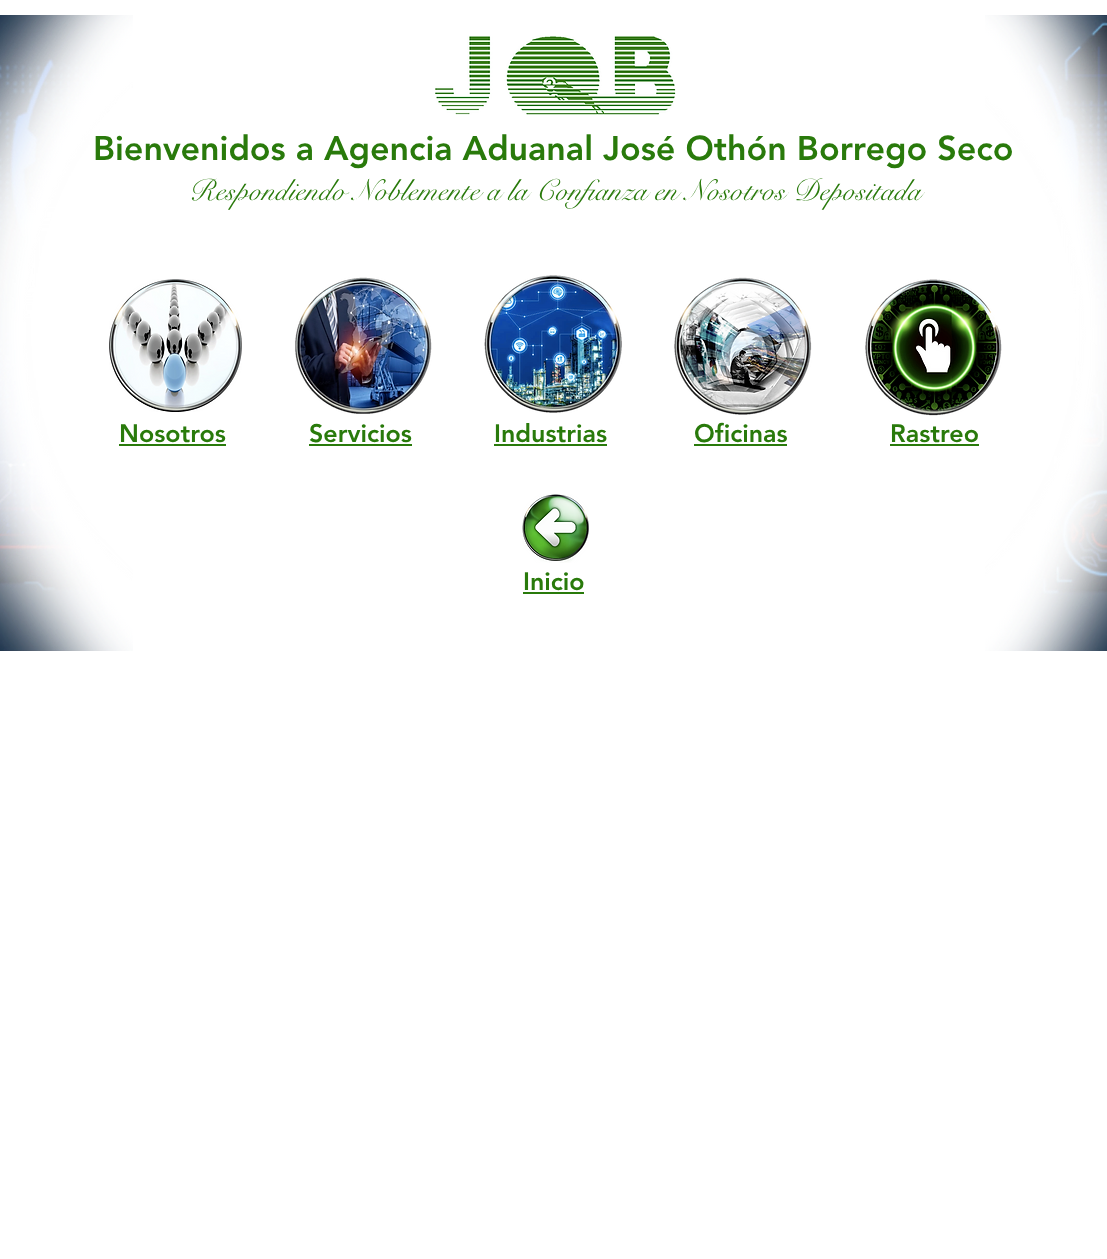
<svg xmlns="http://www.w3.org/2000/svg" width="1107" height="1259">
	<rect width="100%" height="100%" fill="#FFFFFF" />
	<image x="0" y="15" width="133" height="636" href="assets/img1.png" />
	<image x="435" y="35" width="241" height="80" href="assets/img2.png" />
	<text x="93" y="160" font-family="'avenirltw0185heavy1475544'" font-size="34" font-weight="900" fill="#297A0B">Bienvenidos a Agencia Aduanal José Othón Borrego Seco</text>
	<image x="865" y="279" width="137" height="137" href="assets/img8.png" />
	<image x="985" y="15" width="122" height="636" href="assets/img3.png" />
	<text x="189" y="200" font-family="'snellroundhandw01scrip'" font-size="30" fill="#297A0B">Respondiendo Noblemente a la Confianza en Nosotros Depositada</text>
	<image x="109" y="279" width="133" height="133" href="assets/img4.png" />
	<image x="295" y="277" width="137" height="137" href="assets/img5.png" />
	<image x="484" y="275" width="138" height="138" href="assets/img6.png" />
	<image x="674" y="277" width="138" height="138" href="assets/img7.png" />
	<text x="119" y="442" font-family="'avenirltw0185heavy1475544'" font-size="25" font-weight="900" fill="#297A0B">Nosotros</text>
	<rect x="119" y="444" width="107" height="2" fill="#297A0B" />
	<text x="309" y="442" font-family="'avenirltw0185heavy1475544'" font-size="25" font-weight="900" fill="#297A0B">Servicios</text>
	<rect x="309" y="444" width="103" height="2" fill="#297A0B" />
	<text x="494" y="442" font-family="'avenirltw0185heavy1475544'" font-size="25" font-weight="900" fill="#297A0B">Industrias</text>
	<rect x="494" y="444" width="113" height="2" fill="#297A0B" />
	<text x="694" y="442" font-family="'avenirltw0185heavy1475544'" font-size="25" font-weight="900" fill="#297A0B">Oficinas</text>
	<rect x="694" y="444" width="93" height="2" fill="#297A0B" />
	<text x="890" y="442" font-family="'avenirltw0185heavy1475544'" font-size="25" font-weight="900" fill="#297A0B">Rastreo</text>
	<rect x="890" y="444" width="89" height="2" fill="#297A0B" />
	<image x="522" y="494" width="67" height="69" href="assets/img9.png" />
	<text x="523" y="590" font-family="'avenirltw0185heavy1475544'" font-size="25" font-weight="900" fill="#297A0B">Inicio</text>
	<rect x="523" y="592" width="61" height="2" fill="#297A0B" />
</svg>
